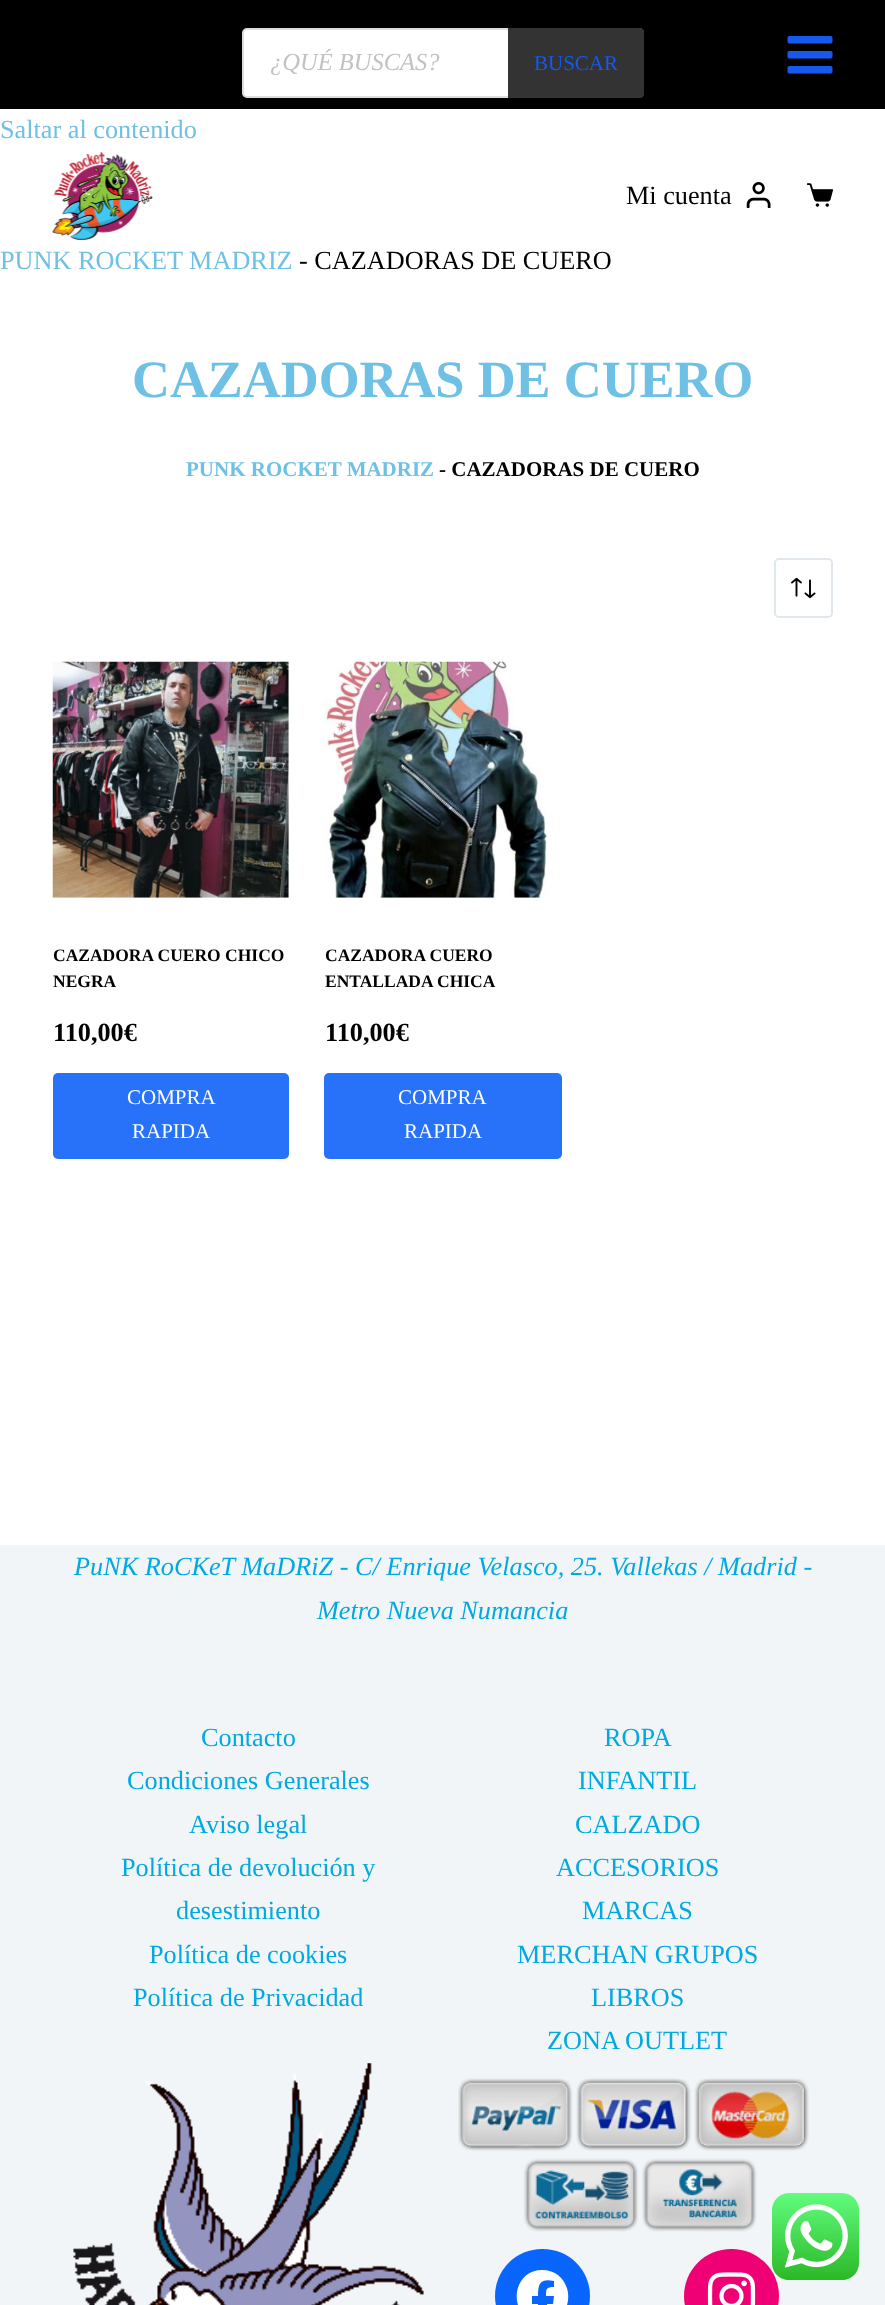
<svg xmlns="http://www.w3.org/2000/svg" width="885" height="2305">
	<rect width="100%" height="100%" fill="#FFFFFF" />
	<rect x="0" y="0" width="885" height="109" fill="#000000" />
	<rect x="243" y="29" width="400" height="68" rx="4" fill="#FFFFFF" stroke="#DDDDDD" stroke-width="2" />
	<text x="270" y="70" font-family="Liberation Serif" font-size="24.5" font-style="italic" fill="#C2C2C2">¿QUÉ BUSCAS?</text>
	<path d="M508 28H640C642 28 644 30 644 32V94C644 96 642 98 640 98H508Z" fill="#333333" />
	<text x="534" y="70" font-family="Liberation Serif" font-size="21" fill="#1559ED">BUSCAR</text>
	<image x="787" y="36" width="46" height="38" href="assets/img1.png" />
	<text x="0" y="138" font-family="Liberation Serif" font-size="26.25" fill="#6EC1E4">Saltar al contenido</text>
	<image x="52" y="152" width="101" height="88" href="assets/img2.png" />
	<text x="626" y="204" font-family="Liberation Serif" font-size="26.25" fill="#000000">Mi cuenta</text>
	<image x="746" y="182" width="25" height="26" href="assets/img3.png" />
	<image x="807" y="183" width="26" height="24" href="assets/img4.png" />
	<text x="0" y="269" font-family="Liberation Serif" font-size="26.25" fill="#6EC1E4">PUNK ROCKET MADRIZ</text>
	<text x="299" y="269" font-family="Liberation Serif" font-size="26.25" fill="#000000">- CAZADORAS DE CUERO</text>
	<text x="132" y="397" font-family="Liberation Serif" font-size="52.5" font-weight="700" fill="#6EC1E4">CAZADORAS DE CUERO</text>
	<text x="186" y="476" font-family="Liberation Serif" font-size="21" font-weight="700" fill="#6EC1E4">PUNK ROCKET MADRIZ</text>
	<text x="439" y="476" font-family="Liberation Serif" font-size="21" font-weight="700" fill="#000000">- CAZADORAS DE CUERO</text>
	<rect x="775" y="559" width="57" height="58" rx="4" fill="none" stroke="#E1E8ED" stroke-width="2" />
	<image x="791" y="577" width="25" height="22" href="assets/img5.png" />
	<image x="52" y="661" width="237" height="237" href="assets/img6.png" />
	<g font-family="Liberation Serif" font-size="17.5" font-weight="700" fill="#000000">
		<text x="53" y="961">CAZADORA CUERO CHICO</text>
		<text x="53" y="987">NEGRA</text>
	</g>
	<text x="53" y="1041" font-family="Liberation Serif" font-size="26.25" font-weight="700" fill="#000000">110,00€</text>
	<rect x="53" y="1073" width="236" height="86" rx="5" fill="#2872FA" />
	<g font-family="Liberation Serif" font-size="21" fill="#FFFFFF">
		<text x="127" y="1104">COMPRA</text>
		<text x="132" y="1138">RAPIDA</text>
	</g>
	<image x="324" y="661" width="228" height="237" href="assets/img7.png" />
	<g font-family="Liberation Serif" font-size="17.5" font-weight="700" fill="#000000">
		<text x="325" y="961">CAZADORA CUERO</text>
		<text x="325" y="987">ENTALLADA CHICA</text>
	</g>
	<text x="325" y="1041" font-family="Liberation Serif" font-size="26.25" font-weight="700" fill="#000000">110,00€</text>
	<rect x="324" y="1073" width="238" height="86" rx="5" fill="#2872FA" />
	<g font-family="Liberation Serif" font-size="21" fill="#FFFFFF">
		<text x="398" y="1104">COMPRA</text>
		<text x="404" y="1138">RAPIDA</text>
	</g>
	<rect x="0" y="1545" width="885" height="760" fill="#F2F5F7" />
	<g font-family="Liberation Serif" font-size="26.25" font-style="italic" fill="#00A9E0">
		<text x="74" y="1575">PuNK RoCKeT MaDRiZ - C/ Enrique Velasco, 25. Vallekas / Madrid -</text>
		<text x="317" y="1619">Metro Nueva Numancia</text>
	</g>
	<g font-family="Liberation Serif" font-size="26.25" fill="#00A9E0">
		<text x="201" y="1746">Contacto</text>
		<text x="127" y="1789">Condiciones Generales</text>
		<text x="189" y="1833">Aviso legal</text>
		<text x="121" y="1876">Política de devolución y</text>
		<text x="176" y="1919">desestimiento</text>
		<text x="149" y="1963">Política de cookies</text>
		<text x="133" y="2006">Política de Privacidad</text>
		<text x="604" y="1746">ROPA</text>
		<text x="578" y="1789">INFANTIL</text>
		<text x="575" y="1833">CALZADO</text>
		<text x="556" y="1876">ACCESORIOS</text>
		<text x="582" y="1919">MARCAS</text>
		<text x="517" y="1963">MERCHAN GRUPOS</text>
		<text x="591" y="2006">LIBROS</text>
		<text x="547" y="2049">ZONA OUTLET</text>
	</g>
	<image x="73" y="2063" width="351" height="242" href="assets/img8.png" />
	<image x="458" y="2078" width="351" height="154" href="assets/img9.png" />
	<rect x="495" y="2249" width="95" height="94" rx="47" fill="#0866FF" />
	<path d="M542 2270C511 2270 507 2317 538 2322V2304H532V2296H538C538 2284 540 2278 554 2281V2287C546 2287 546 2289 546 2296H554L553 2304H547V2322C578 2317 574 2270 542 2270Z" fill="#FFFFFF" />
	<rect x="684" y="2249" width="95" height="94" rx="47" fill="#F00075" />
	<image x="707" y="2272" width="49" height="33" href="assets/img10.png" />
	<image x="772" y="2193" width="87" height="87" href="assets/img11.png" />
</svg>
